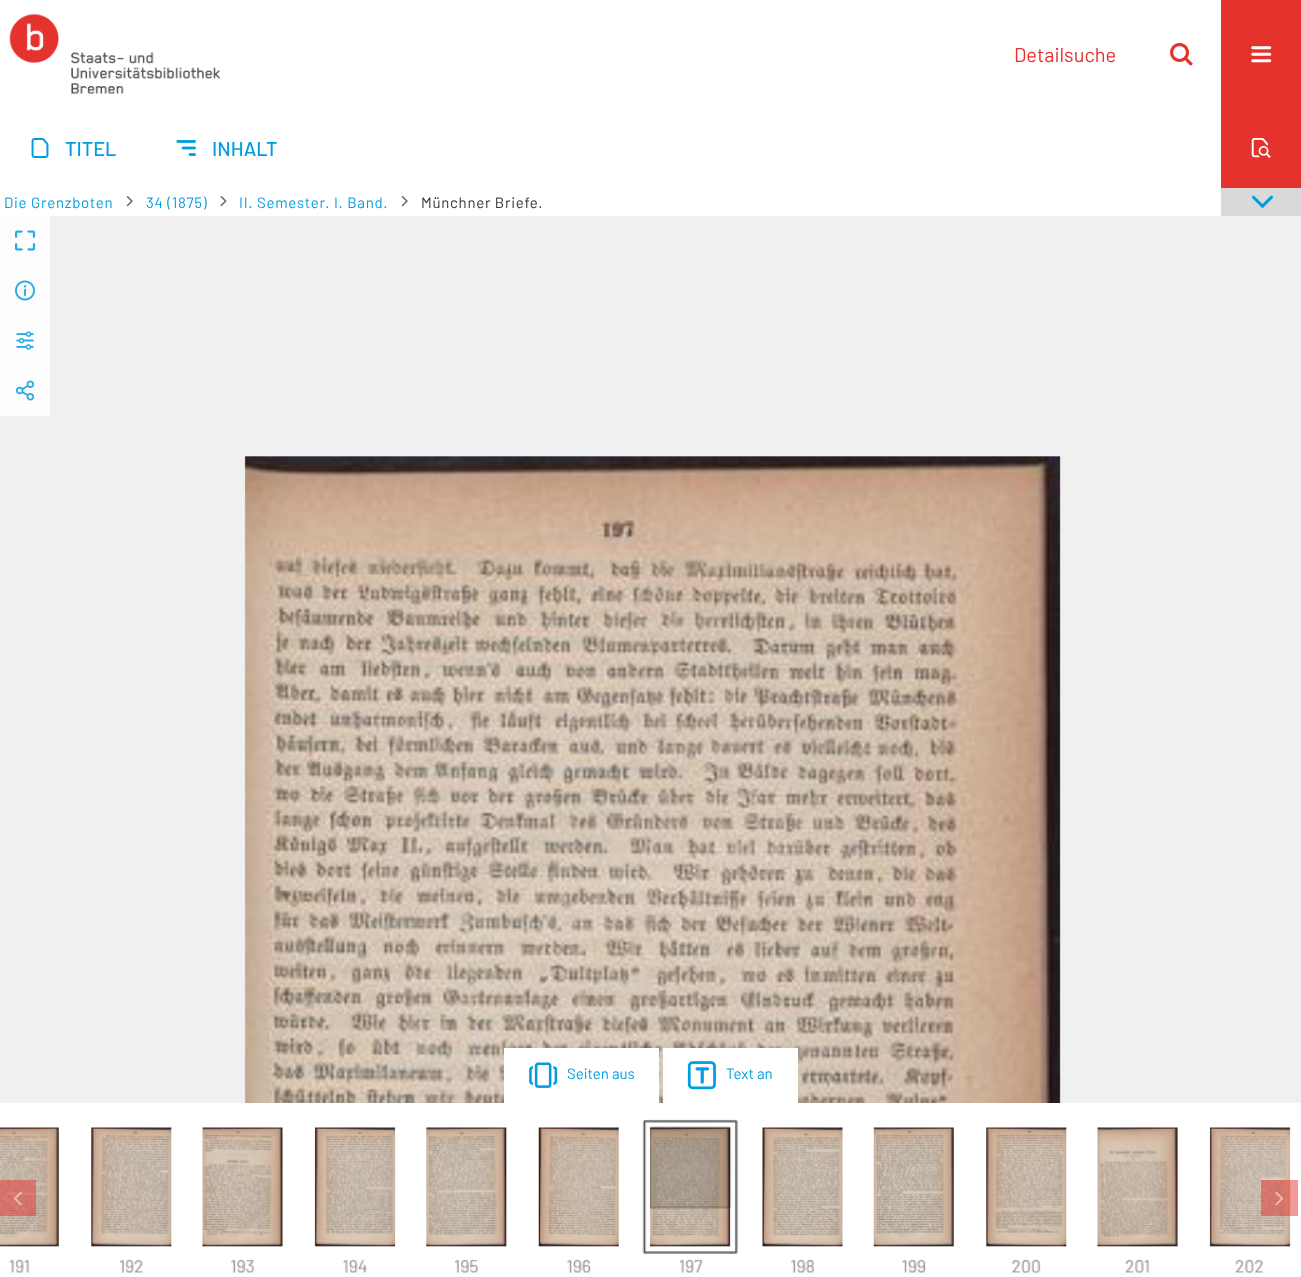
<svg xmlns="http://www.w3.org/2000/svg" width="1301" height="1277">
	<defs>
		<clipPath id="clip1"><path d="M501 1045H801V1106H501ZM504 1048H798V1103H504Z" clip-rule="evenodd" /></clipPath>
	</defs>
	<rect width="100%" height="100%" fill="#FFFFFF" />
	<image x="9" y="14" width="212" height="80" href="assets/img1.png" />
	<text x="1014" y="62" font-family="Barlow" font-size="20" fill="#E5322D">Detailsuche</text>
	<image x="1170" y="43" width="23" height="23" href="assets/img2.png" />
	<rect x="1221" y="0" width="80" height="188" fill="#E5322D" />
	<image x="1251" y="46" width="21" height="17" href="assets/img3.png" />
	<image x="31" y="138" width="18" height="20" href="assets/img4.png" />
	<text x="65" y="156" font-family="Barlow" font-size="20" font-weight="500" fill="#009DE0">TITEL</text>
	<image x="176" y="140" width="20" height="16" href="assets/img5.png" />
	<text x="212" y="156" font-family="Barlow" font-size="20" font-weight="500" fill="#009DE0">INHALT</text>
	<image x="1251" y="138" width="20" height="20" href="assets/img6.png" />
	<text x="4" y="208" font-family="Barlow" font-size="15" letter-spacing="0.75" fill="#009DE0">Die Grenzboten</text>
	<image x="126" y="196" width="7" height="11" href="assets/img7.png" />
	<text x="146" y="208" font-family="Barlow" font-size="15" letter-spacing="0.75" fill="#009DE0">34 (1875)</text>
	<image x="220" y="196" width="7" height="11" href="assets/img8.png" />
	<text x="239" y="208" font-family="Barlow" font-size="15" letter-spacing="0.75" fill="#009DE0">II. Semester. I. Band.</text>
	<image x="401" y="196" width="7" height="11" href="assets/img7.png" />
	<text x="421" y="208" font-family="Barlow" font-size="15" letter-spacing="0.75" fill="#333333">Münchner Briefe.</text>
	<rect x="1221" y="188" width="80" height="28" fill="#D9D9D9" />
	<image x="1252" y="195" width="21" height="14" href="assets/img9.png" />
	<rect x="0" y="216" width="1301" height="887" fill="#F0F0F0" />
	<rect x="0" y="216" width="50" height="150" fill="#FDFDFD" />
	<image x="15" y="230" width="21" height="21" href="assets/img10.png" />
	<image x="15" y="280" width="20" height="21" href="assets/img11.png" />
	<image x="16" y="331" width="18" height="19" href="assets/img12.png" />
	<path d="M0 366H50V413.5C50 415 49 416 47.5 416H0Z" fill="#FDFDFD" />
	<image x="15" y="380" width="20" height="21" href="assets/img13.png" />
	<image x="244" y="456" width="817" height="647" href="assets/img14.png" />
	<g clip-path="url(#clip1)">
		<rect x="504" y="1048" width="294" height="55" fill="#000000" fill-opacity="0.27" filter="blur(0.5px)" />
	</g>
	<rect x="504" y="1048" width="155" height="55" fill="#FFFFFF" />
	<image x="529" y="1062" width="29" height="26" href="assets/img15.png" />
	<text x="567" y="1079" font-family="Barlow" font-size="15" fill="#009DE0">Seiten aus</text>
	<rect x="663" y="1048" width="135" height="55" fill="#FFFFFF" />
	<image x="687" y="1061" width="29" height="29" href="assets/img16.png" />
	<text x="726" y="1079" font-family="Barlow" font-size="15" fill="#009DE0">Text an</text>
	<image x="0" y="1119" width="1291" height="155" href="assets/img17.png" />
	<rect x="0" y="1180" width="36" height="36" fill="#E5322D" fill-opacity="0.5" />
	<image x="13" y="1191" width="9" height="15" href="assets/img18.png" />
	<rect x="1261" y="1180" width="37" height="36" fill="#E5322D" fill-opacity="0.5" />
	<image x="1275" y="1191" width="9" height="15" href="assets/img19.png" />
</svg>
